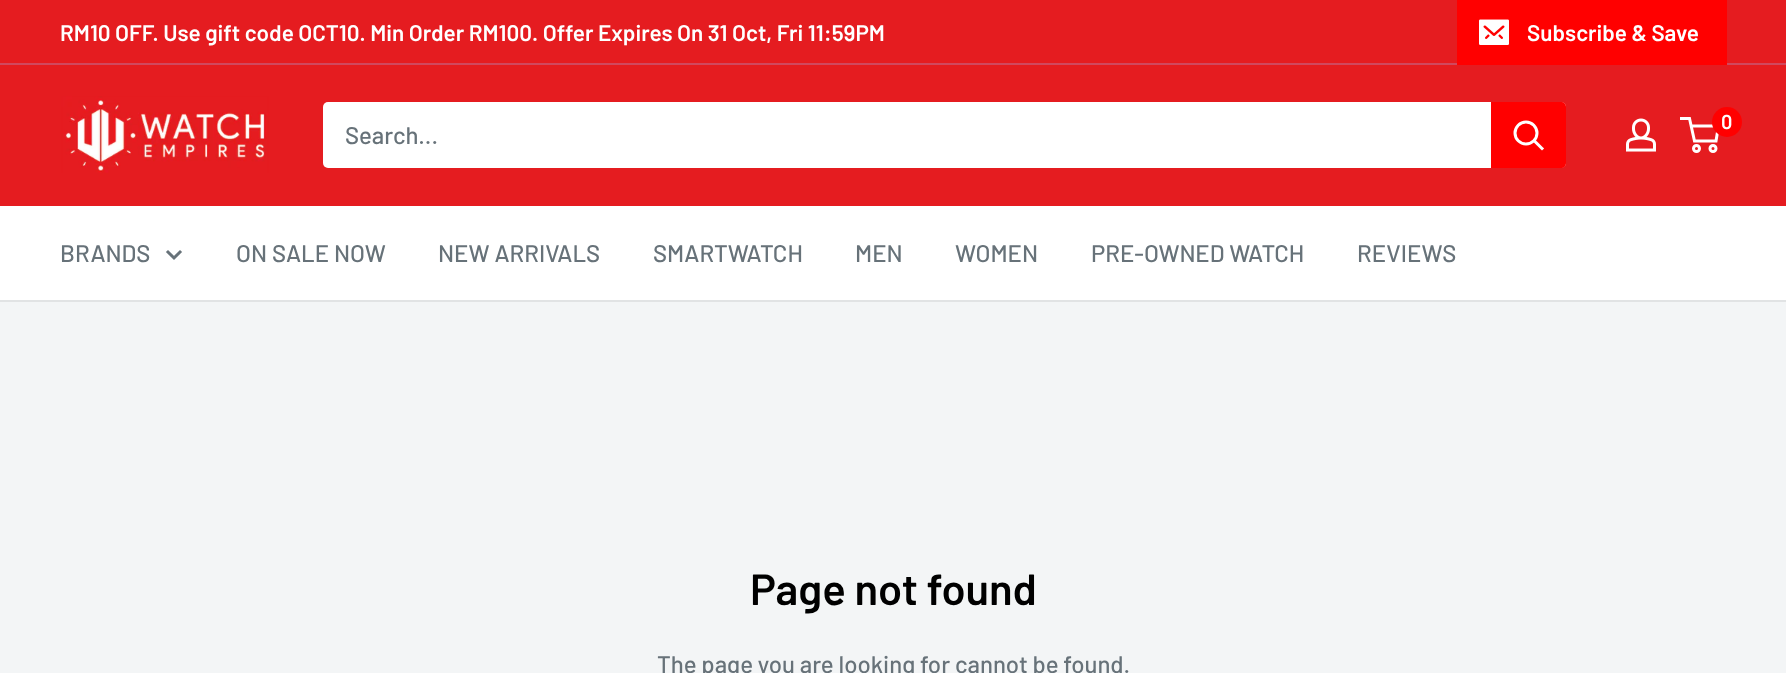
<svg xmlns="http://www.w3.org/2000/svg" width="1786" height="673">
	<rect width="100%" height="100%" fill="#F3F5F6" />
	<rect x="0" y="0" width="1786" height="63" fill="#E51C20" />
	<rect x="0" y="63" width="1786" height="2" fill="#D1485E" />
	<text x="60" y="41" font-family="Barlow" font-size="22.5" font-weight="600" fill="#FFFFFF">RM10 OFF. Use gift code OCT10. Min Order RM100. Offer Expires On 31 Oct, Fri 11:59PM</text>
	<path d="M1457 63V65H1727V2H1726V63Z" fill="#FF0000" />
	<rect x="1457" y="0" width="270" height="63" fill="#FF0000" />
	<image x="1479" y="19" width="30" height="26" href="assets/img1.png" />
	<text x="1527" y="41" font-family="Barlow" font-size="22.5" font-weight="600" fill="#FFFFFF">Subscribe &amp; Save</text>
	<rect x="0" y="65" width="1786" height="141" fill="#E51C20" />
	<image x="61" y="96" width="208" height="77" href="assets/img2.png" />
	<image x="1626" y="118" width="30" height="34" href="assets/img3.png" />
	<circle cx="1696.5" cy="148.5" r="3" fill="none" stroke="#FFFFFF" stroke-width="3" />
	<circle cx="1713" cy="148.5" r="3" fill="none" stroke="#FFFFFF" stroke-width="3" />
	<path d="M1691 126H1718.5L1716 141H1694.5L1689.5 118.5H1680" fill="none" stroke="#FFFFFF" stroke-width="3" />
	<circle cx="1727" cy="122" r="15" fill="#FF0000" />
	<text x="1721" y="129" font-family="Barlow" font-size="20" font-weight="600" fill="#FFFFFF">0</text>
	<rect x="323" y="102" width="1243" height="66" rx="5" fill="#FFFFFF" />
	<text x="345" y="144" font-family="Barlow" font-size="24" font-weight="500" fill="#677279">Search...</text>
	<path d="M1491 102H1561C1564 102 1566 104 1566 107V163C1566 166 1564 168 1561 168H1491Z" fill="#FF0000" />
	<path d="M1542 148.5L1534.5 141" fill="none" stroke="#FFFFFF" stroke-width="3" stroke-linecap="square" />
	<circle cx="1526" cy="133" r="11" fill="none" stroke="#FFFFFF" stroke-width="3" />
	<rect x="0" y="206" width="1786" height="94" fill="#FFFFFF" />
	<rect x="0" y="300" width="1786" height="2" fill="#E1E3E4" />
	<text x="60" y="262" font-family="Barlow" font-size="24" font-weight="500" fill="#677279">BRANDS</text>
	<path d="M180 252L174 258L168 252" fill="none" stroke="#677279" stroke-width="3" stroke-linecap="square" />
	<g font-family="Barlow" font-size="24" font-weight="500" fill="#677279">
		<text x="236" y="262">ON SALE NOW</text>
		<text x="438" y="262">NEW ARRIVALS</text>
		<text x="653" y="262">SMARTWATCH</text>
		<text x="855" y="262">MEN</text>
		<text x="955" y="262">WOMEN</text>
		<text x="1091" y="262">PRE-OWNED WATCH</text>
		<text x="1357" y="262">REVIEWS</text>
	</g>
	<text x="750" y="605" font-family="Barlow" font-size="43.5" font-weight="600" fill="#000000">Page not found</text>
	<text x="657" y="673" font-family="Barlow" font-size="24" font-weight="500" fill="#677279">The page you are looking for cannot be found.</text>
</svg>
